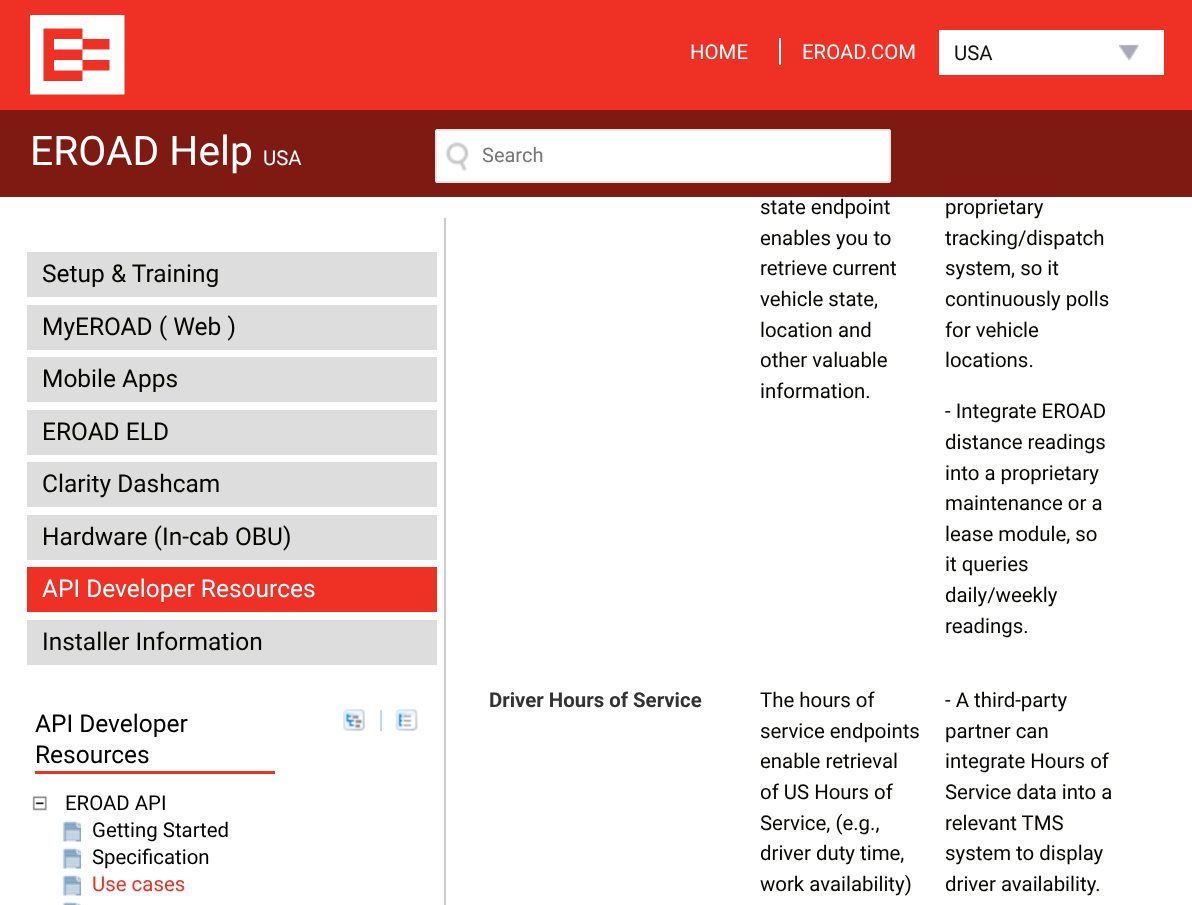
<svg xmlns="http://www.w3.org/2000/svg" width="1192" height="905">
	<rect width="100%" height="100%" fill="#FFFFFF" />
	<rect x="0" y="0" width="1192" height="110" fill="#EE3124" />
	<image x="30" y="15" width="95" height="80" href="assets/img1.png" />
	<text x="690" y="59" font-family="Roboto" font-size="20.4" fill="#FFFFFF">HOME</text>
	<rect x="779" y="38" width="2" height="27" fill="#FFFFFF" />
	<text x="802" y="59" font-family="Roboto" font-size="20.4" fill="#FFFFFF">EROAD.COM</text>
	<rect x="939" y="30" width="225" height="45" fill="#FFFFFF" />
	<text x="954" y="60" font-family="Roboto" font-size="20.4" fill="#13120D">USA</text>
	<image x="1119" y="44" width="20" height="17" href="assets/img2.png" />
	<rect x="0" y="110" width="1192" height="87" fill="#7F1A13" />
	<text x="30" y="165" font-family="Roboto" font-size="40.75" fill="#FFFFFF">EROAD Help</text>
	<text x="263" y="165" font-family="Roboto" font-size="20.4" fill="#FFFFFF">USA</text>
	<rect x="435" y="129" width="456" height="54" rx="3" fill="#FFFFFF" />
	<image x="445" y="142" width="24" height="29" href="assets/img3.png" />
	<rect x="436" y="130" width="454" height="52" rx="2" fill="none" stroke="#E5E5E5" stroke-width="2" />
	<text x="482" y="162" font-family="Roboto" font-size="20" fill="#757575">Search</text>
	<rect x="444" y="218" width="2" height="687" fill="#CCCCCC" />
	<rect x="27" y="252" width="410" height="45" fill="#DDDDDD" />
	<text x="42" y="282" font-family="Roboto" font-size="24.5" fill="#060500">Setup &amp; Training</text>
	<rect x="27" y="305" width="410" height="45" fill="#DDDDDD" />
	<text x="42" y="335" font-family="Roboto" font-size="24.5" fill="#060500">MyEROAD ( Web )</text>
	<rect x="27" y="357" width="410" height="45" fill="#DDDDDD" />
	<text x="42" y="387" font-family="Roboto" font-size="24.5" fill="#060500">Mobile Apps</text>
	<rect x="27" y="410" width="410" height="45" fill="#DDDDDD" />
	<text x="42" y="440" font-family="Roboto" font-size="24.5" fill="#060500">EROAD ELD</text>
	<rect x="27" y="462" width="410" height="45" fill="#DDDDDD" />
	<text x="42" y="492" font-family="Roboto" font-size="24.5" fill="#060500">Clarity Dashcam</text>
	<rect x="27" y="515" width="410" height="45" fill="#DDDDDD" />
	<text x="42" y="545" font-family="Roboto" font-size="24.5" fill="#060500">Hardware (In-cab OBU)</text>
	<rect x="27" y="567" width="410" height="45" fill="#EE3124" />
	<text x="42" y="597" font-family="Roboto" font-size="24.5" fill="#FFFFFF">API Developer Resources</text>
	<rect x="27" y="620" width="410" height="45" fill="#DDDDDD" />
	<text x="42" y="650" font-family="Roboto" font-size="24.5" fill="#060500">Installer Information</text>
	<rect x="35" y="771" width="240" height="3" fill="#EE3124" />
	<g font-family="Roboto" font-size="24.5" fill="#000000">
		<text x="35" y="732">API Developer</text>
		<text x="35" y="763">Resources</text>
	</g>
	<rect x="380" y="710" width="2" height="21" fill="#BFD7FD" />
	<image x="343" y="709" width="22" height="22" href="assets/img4.png" />
	<image x="395" y="709" width="23" height="22" href="assets/img5.png" />
	<image x="32" y="796" width="15" height="15" href="assets/img6.png" />
	<text x="65" y="810" font-family="Roboto" font-size="20.4" fill="#000000">EROAD API</text>
	<image x="62" y="820" width="19" height="22" href="assets/img7.png" />
	<text x="92" y="837" font-family="Roboto" font-size="20.4" fill="#000000">Getting Started</text>
	<image x="62" y="847" width="19" height="22" href="assets/img7.png" />
	<text x="92" y="864" font-family="Roboto" font-size="20.4" fill="#000000">Specification</text>
	<image x="62" y="874" width="19" height="22" href="assets/img7.png" />
	<text x="92" y="891" font-family="Roboto" font-size="20.4" fill="#EE3124">Use cases</text>
	<image x="62" y="901" width="19" height="4" href="assets/img8.png" />
	<g font-family="Roboto" font-size="20.4" fill="#060500">
		<text x="760" y="214">state endpoint</text>
		<text x="760" y="245">enables you to</text>
		<text x="760" y="275">retrieve current</text>
		<text x="760" y="306">vehicle state,</text>
		<text x="760" y="337">location and</text>
		<text x="760" y="367">other valuable</text>
		<text x="760" y="398">information.</text>
		<text x="945" y="214">proprietary</text>
		<text x="945" y="245">tracking/dispatch</text>
		<text x="945" y="275">system, so it</text>
		<text x="945" y="306">continuously polls</text>
		<text x="945" y="337">for vehicle</text>
		<text x="945" y="367">locations.</text>
		<text x="945" y="418">- Integrate EROAD</text>
		<text x="945" y="449">distance readings</text>
		<text x="945" y="480">into a proprietary</text>
		<text x="945" y="510">maintenance or a</text>
		<text x="945" y="541">lease module, so</text>
		<text x="945" y="571">it queries</text>
		<text x="945" y="602">daily/weekly</text>
		<text x="945" y="633">readings.</text>
	</g>
	<text x="489" y="707" font-family="Roboto" font-size="20.4" font-weight="700" fill="#333333">Driver Hours of Service</text>
	<g font-family="Roboto" font-size="20.4" fill="#060500">
		<text x="760" y="707">The hours of</text>
		<text x="760" y="738">service endpoints</text>
		<text x="760" y="768">enable retrieval</text>
		<text x="760" y="799">of US Hours of</text>
		<text x="760" y="830">Service, (e.g.,</text>
		<text x="760" y="860">driver duty time,</text>
		<text x="760" y="891">work availability)</text>
		<text x="945" y="707">- A third-party</text>
		<text x="945" y="738">partner can</text>
		<text x="945" y="768">integrate Hours of</text>
		<text x="945" y="799">Service data into a</text>
		<text x="945" y="830">relevant TMS</text>
		<text x="945" y="860">system to display</text>
		<text x="945" y="891">driver availability.</text>
	</g>
</svg>
